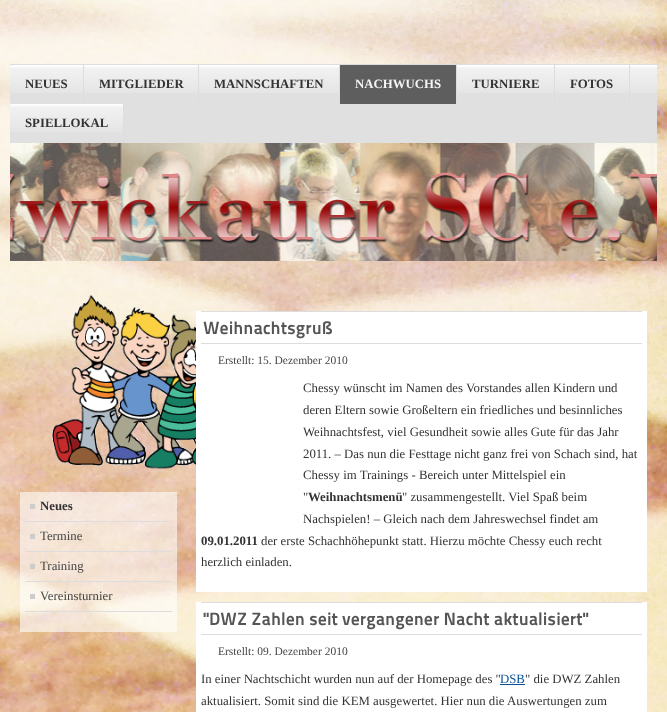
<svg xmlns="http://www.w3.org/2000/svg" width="667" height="712">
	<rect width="100%" height="100%" fill="#FFFFFF" />
	<image x="0" y="0" width="667" height="712" href="assets/img1.png" />
	<rect x="10" y="93" width="647" height="50" fill="#E0E0E0" />
	<image x="630" y="65" width="27" height="28" href="assets/img2.png" />
	<rect x="10" y="64" width="647" height="1" fill="#DDDDDD" />
	<image x="10" y="65" width="73" height="28" href="assets/img3.png" />
	<rect x="83" y="65" width="1" height="39" fill="#DDDDDD" />
	<text x="25" y="88" font-family="Liberation Serif" font-size="12.8" font-weight="700" fill="#333333">NEUES</text>
	<image x="84" y="65" width="114" height="28" href="assets/img4.png" />
	<rect x="198" y="65" width="1" height="39" fill="#DDDDDD" />
	<text x="99" y="88" font-family="Liberation Serif" font-size="12.8" font-weight="700" fill="#333333">MITGLIEDER</text>
	<image x="199" y="65" width="140" height="28" href="assets/img5.png" />
	<rect x="339" y="65" width="1" height="39" fill="#DDDDDD" />
	<text x="214" y="88" font-family="Liberation Serif" font-size="12.8" font-weight="700" fill="#333333">MANNSCHAFTEN</text>
	<rect x="340" y="65" width="116" height="39" fill="#5E5E5E" />
	<rect x="456" y="65" width="1" height="39" fill="#DDDDDD" />
	<text x="355" y="88" font-family="Liberation Serif" font-size="12.8" font-weight="700" fill="#F5F5F5">NACHWUCHS</text>
	<image x="457" y="65" width="97" height="28" href="assets/img6.png" />
	<rect x="554" y="65" width="1" height="39" fill="#DDDDDD" />
	<text x="472" y="88" font-family="Liberation Serif" font-size="12.8" font-weight="700" fill="#333333">TURNIERE</text>
	<image x="555" y="65" width="74" height="28" href="assets/img7.png" />
	<rect x="629" y="65" width="1" height="39" fill="#DDDDDD" />
	<text x="570" y="88" font-family="Liberation Serif" font-size="12.8" font-weight="700" fill="#333333">FOTOS</text>
	<image x="10" y="104" width="113" height="28" href="assets/img8.png" />
	<rect x="123" y="104" width="1" height="39" fill="#DDDDDD" />
	<text x="25" y="127" font-family="Liberation Serif" font-size="12.8" font-weight="700" fill="#333333">SPIELLOKAL</text>
	<image x="10" y="143" width="647" height="118" href="assets/img9.png" />
	<image x="52" y="295" width="144" height="174" href="assets/img10.png" />
	<rect x="20" y="492" width="157" height="140" fill="#FFFFFF" fill-opacity="0.6" />
	<rect x="25" y="521" width="147" height="1" fill="#DDDDDD" />
	<rect x="30" y="504" width="5" height="5" fill="#CCCCCC" />
	<text x="40" y="510" font-family="Liberation Serif" font-size="12.8" font-weight="700" fill="#333333">Neues</text>
	<rect x="25" y="551" width="147" height="1" fill="#DDDDDD" />
	<rect x="30" y="534" width="5" height="5" fill="#CCCCCC" />
	<text x="40" y="540" font-family="Liberation Serif" font-size="12.8" fill="#444444">Termine</text>
	<rect x="25" y="581" width="147" height="1" fill="#DDDDDD" />
	<rect x="30" y="564" width="5" height="5" fill="#CCCCCC" />
	<text x="40" y="570" font-family="Liberation Serif" font-size="12.8" fill="#444444">Training</text>
	<rect x="25" y="611" width="147" height="1" fill="#DDDDDD" />
	<rect x="30" y="594" width="5" height="5" fill="#CCCCCC" />
	<text x="40" y="600" font-family="Liberation Serif" font-size="12.8" fill="#444444">Vereinsturnier</text>
	<rect x="196" y="311" width="451" height="281" fill="#FFFFFF" />
	<rect x="201" y="311" width="441" height="1" fill="#DDDDDD" />
	<rect x="201" y="343" width="441" height="1" fill="#DDDDDD" />
	<text x="203" y="334" font-family="'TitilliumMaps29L'" font-size="17.9" font-weight="800" fill="#555555">Weihnachtsgruß</text>
	<text x="218" y="364" font-family="Liberation Serif" font-size="11.5" fill="#444444">Erstellt: 15. Dezember 2010</text>
	<g font-family="Liberation Serif" font-size="12.8" fill="#333333">
		<text x="303" y="392">Chessy wünscht im Namen des Vorstandes allen Kindern und</text>
		<text x="303" y="414">deren Eltern sowie Großeltern ein friedliches und besinnliches</text>
		<text x="303" y="436">Weihnachtsfest, viel Gesundheit sowie alles Gute für das Jahr</text>
		<text x="303" y="458">2011. – Das nun die Festtage nicht ganz frei von Schach sind, hat</text>
		<text x="303" y="479">Chessy im Trainings - Bereich unter Mittelspiel ein</text>
		<text x="303" y="501">"</text>
	</g>
	<text x="308" y="501" font-family="Liberation Serif" font-size="12.8" font-weight="700" fill="#333333">Weihnachtsmenü</text>
	<g font-family="Liberation Serif" font-size="12.8" fill="#333333">
		<text x="402" y="501">" zusammengestellt. Viel Spaß beim</text>
		<text x="303" y="523">Nachspielen! – Gleich nach dem Jahreswechsel findet am</text>
	</g>
	<text x="201" y="545" font-family="Liberation Serif" font-size="12.8" font-weight="700" fill="#333333">09.01.2011</text>
	<g font-family="Liberation Serif" font-size="12.8" fill="#333333">
		<text x="261" y="545">der erste Schachhöhepunkt statt. Hierzu möchte Chessy euch recht</text>
		<text x="201" y="566">herzlich einladen.</text>
	</g>
	<rect x="196" y="602" width="451" height="110" fill="#FFFFFF" />
	<rect x="201" y="602" width="441" height="1" fill="#DDDDDD" />
	<rect x="201" y="634" width="441" height="1" fill="#DDDDDD" />
	<text x="203" y="625" font-family="'TitilliumMaps29L'" font-size="17.9" font-weight="800" fill="#555555">"DWZ Zahlen seit vergangener Nacht aktualisiert"</text>
	<text x="218" y="655" font-family="Liberation Serif" font-size="11.5" fill="#444444">Erstellt: 09. Dezember 2010</text>
	<text x="201" y="683" font-family="Liberation Serif" font-size="12.8" fill="#333333">In einer Nachtschicht wurden nun auf der Homepage des "</text>
	<text x="500" y="683" font-family="Liberation Serif" font-size="12.8" fill="#095197">DSB</text>
	<rect x="500" y="684" width="25" height="1" fill="#095197" />
	<g font-family="Liberation Serif" font-size="12.8" fill="#333333">
		<text x="525" y="683">" die DWZ Zahlen</text>
		<text x="201" y="705">aktualisiert. Somit sind die KEM ausgewertet. Hier nun die Auswertungen zum</text>
	</g>
</svg>
